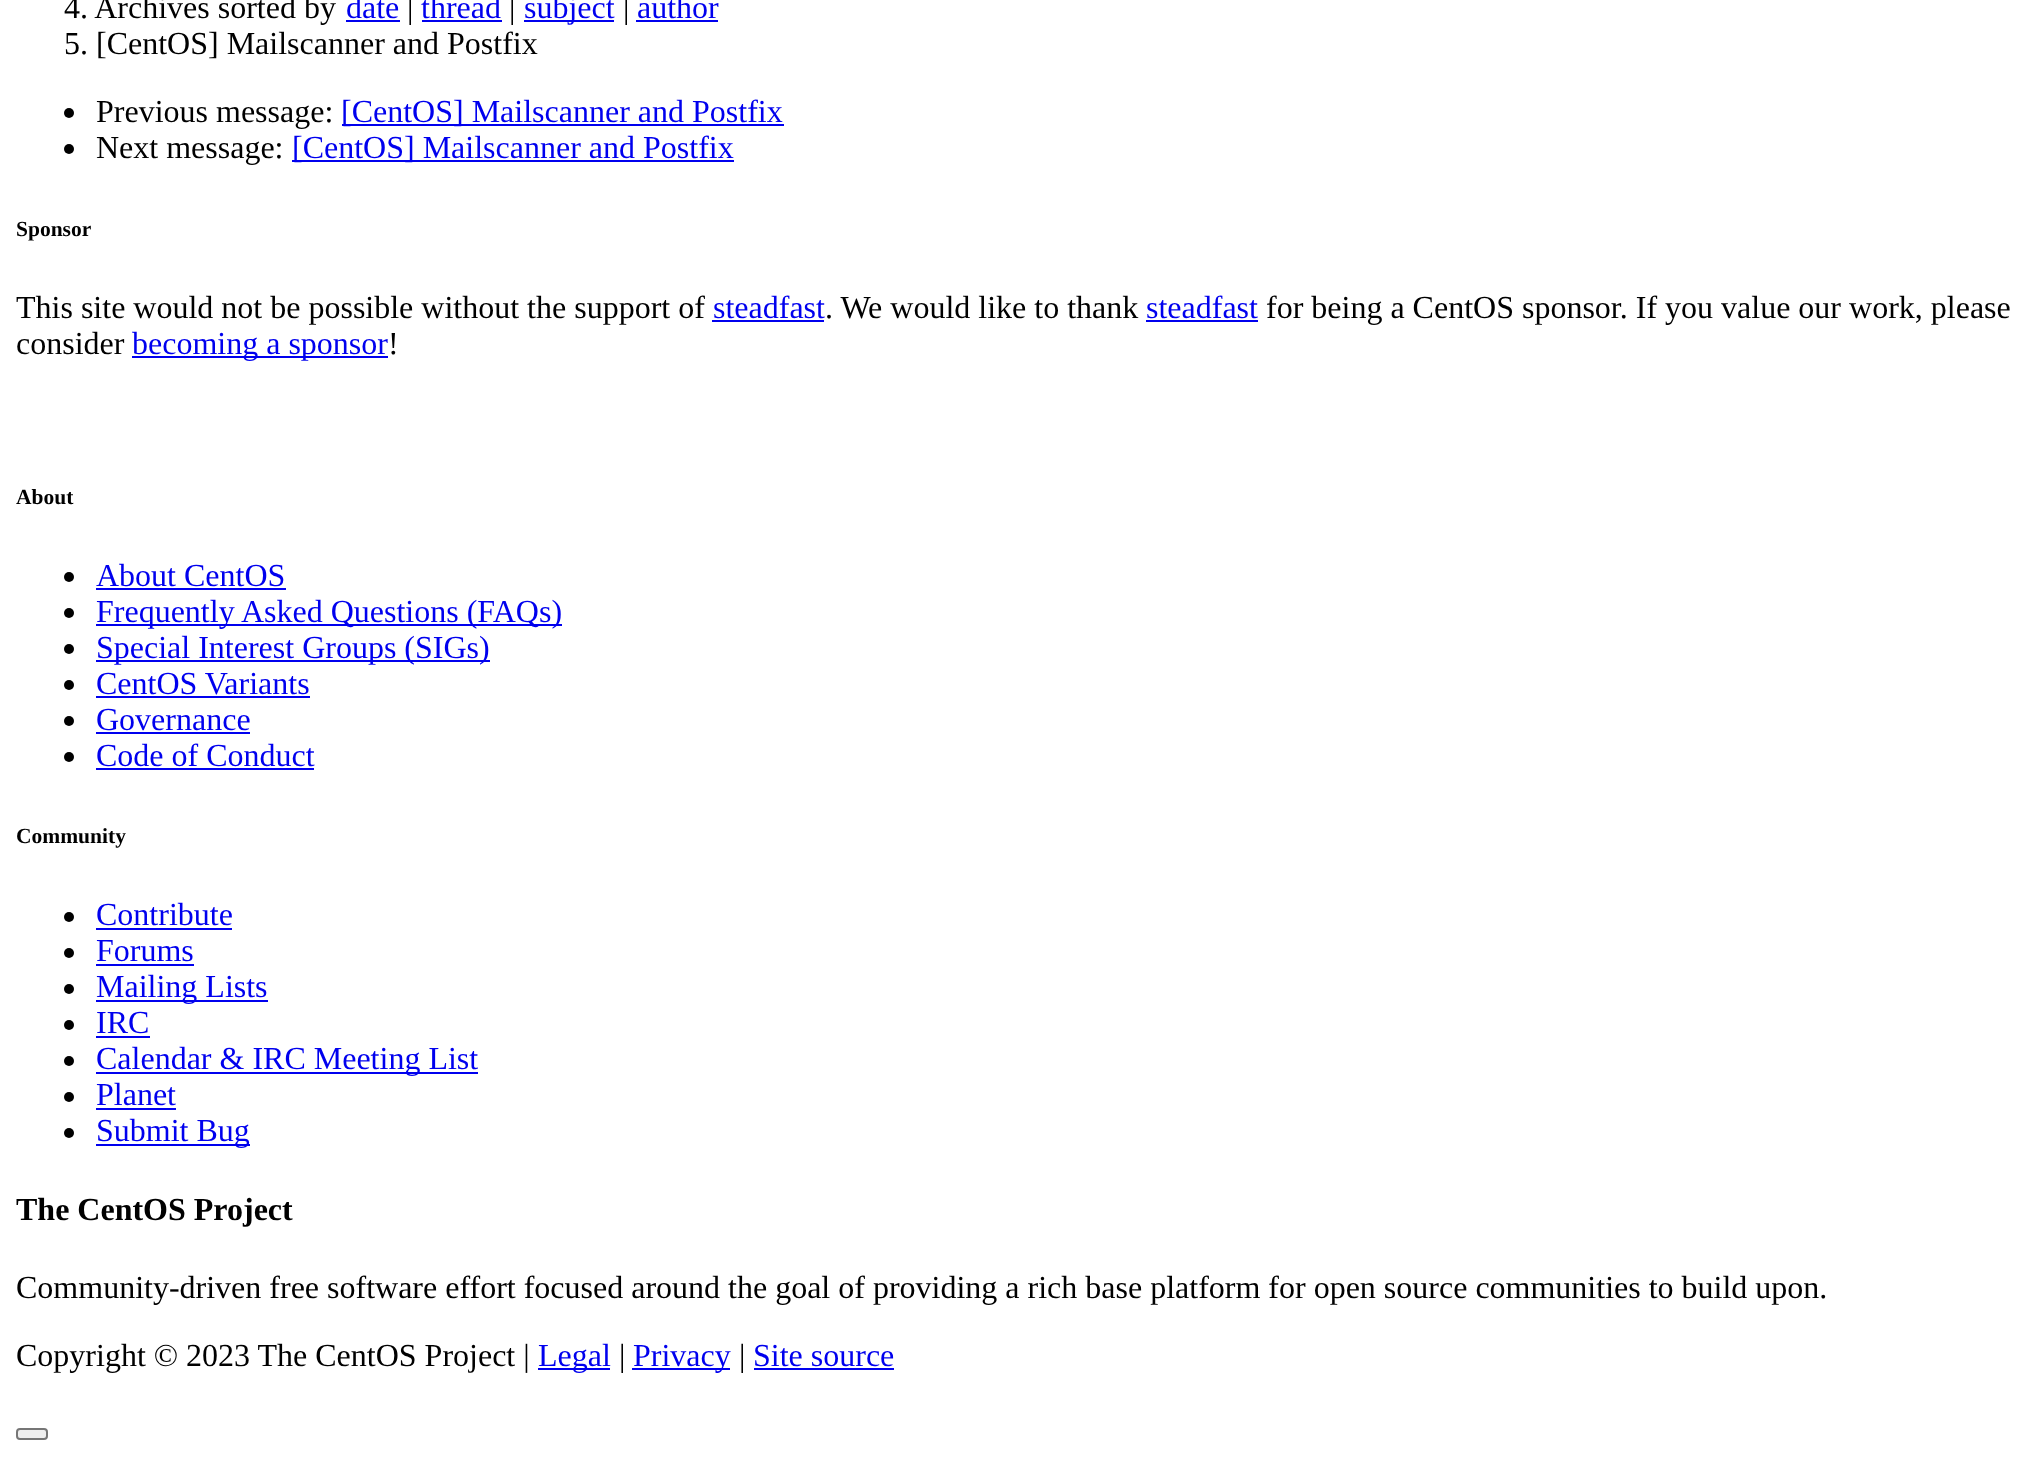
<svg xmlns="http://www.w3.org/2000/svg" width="2034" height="1458">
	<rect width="100%" height="100%" fill="#FFFFFF" />
	<text x="64" y="18" font-family="Liberation Serif" font-size="32" fill="#000000">4. Archives sorted by</text>
	<text x="346" y="18" font-family="Liberation Serif" font-size="32" fill="#0000EE">date</text>
	<rect x="346" y="20" width="54" height="2" fill="#0000EE" />
	<text x="407" y="18" font-family="Liberation Serif" font-size="32" fill="#000000">|</text>
	<text x="421" y="18" font-family="Liberation Serif" font-size="32" fill="#0000EE">thread</text>
	<rect x="422" y="20" width="80" height="2" fill="#0000EE" />
	<text x="509" y="18" font-family="Liberation Serif" font-size="32" fill="#000000">|</text>
	<rect x="524" y="20" width="90" height="2" fill="#0000EE" />
	<text x="524" y="18" font-family="Liberation Serif" font-size="32" fill="#0000EE">subject</text>
	<text x="623" y="18" font-family="Liberation Serif" font-size="32" fill="#000000">|</text>
	<text x="637" y="18" font-family="Liberation Serif" font-size="32" fill="#0000EE">author</text>
	<rect x="636" y="20" width="82" height="2" fill="#0000EE" />
	<text x="64" y="54" font-family="Liberation Serif" font-size="32" fill="#000000">5. [CentOS] Mailscanner and Postfix</text>
	<circle cx="69" cy="113" r="5" fill="#000000" />
	<text x="96" y="122" font-family="Liberation Serif" font-size="32" fill="#000000">Previous message:</text>
	<rect x="342" y="124" width="442" height="2" fill="#0000EE" />
	<text x="341" y="122" font-family="Liberation Serif" font-size="32" fill="#0000EE">[CentOS] Mailscanner and Postfix</text>
	<circle cx="69" cy="149" r="5" fill="#000000" />
	<text x="96" y="158" font-family="Liberation Serif" font-size="32" fill="#000000">Next message:</text>
	<rect x="292" y="160" width="442" height="2" fill="#0000EE" />
	<text x="292" y="158" font-family="Liberation Serif" font-size="32" fill="#0000EE">[CentOS] Mailscanner and Postfix</text>
	<text x="16" y="236" font-family="Liberation Serif" font-size="21.5" font-weight="700" fill="#000000">Sponsor</text>
	<text x="16" y="318" font-family="Liberation Serif" font-size="32" fill="#000000">This site would not be possible without the support of</text>
	<text x="713" y="318" font-family="Liberation Serif" font-size="32" fill="#0000EE">steadfast</text>
	<rect x="712" y="320" width="112" height="2" fill="#0000EE" />
	<text x="825" y="318" font-family="Liberation Serif" font-size="32" fill="#000000">. We would like to thank</text>
	<text x="1146" y="318" font-family="Liberation Serif" font-size="32" fill="#0000EE">steadfast</text>
	<rect x="1146" y="320" width="112" height="2" fill="#0000EE" />
	<g font-family="Liberation Serif" font-size="32" fill="#000000">
		<text x="1266" y="318">for being a CentOS sponsor. If you value our work, please</text>
		<text x="16" y="354">consider</text>
	</g>
	<rect x="132" y="356" width="256" height="2" fill="#0000EE" />
	<text x="132" y="354" font-family="Liberation Serif" font-size="32" fill="#0000EE">becoming a sponsor</text>
	<text x="388" y="354" font-family="Liberation Serif" font-size="32" fill="#000000">!</text>
	<text x="16" y="504" font-family="Liberation Serif" font-size="21.5" font-weight="700" fill="#000000">About</text>
	<circle cx="69" cy="577" r="5" fill="#000000" />
	<text x="96" y="586" font-family="Liberation Serif" font-size="32" fill="#0000EE">About CentOS</text>
	<rect x="96" y="588" width="190" height="2" fill="#0000EE" />
	<circle cx="69" cy="613" r="5" fill="#000000" />
	<rect x="96" y="624" width="466" height="2" fill="#0000EE" />
	<text x="96" y="622" font-family="Liberation Serif" font-size="32" fill="#0000EE">Frequently Asked Questions (FAQs)</text>
	<circle cx="69" cy="649" r="5" fill="#000000" />
	<rect x="96" y="660" width="394" height="2" fill="#0000EE" />
	<text x="96" y="658" font-family="Liberation Serif" font-size="32" fill="#0000EE">Special Interest Groups (SIGs)</text>
	<circle cx="69" cy="685" r="5" fill="#000000" />
	<text x="96" y="694" font-family="Liberation Serif" font-size="32" fill="#0000EE">CentOS Variants</text>
	<rect x="96" y="696" width="214" height="2" fill="#0000EE" />
	<circle cx="69" cy="721" r="5" fill="#000000" />
	<text x="96" y="730" font-family="Liberation Serif" font-size="32" fill="#0000EE">Governance</text>
	<rect x="96" y="732" width="154" height="2" fill="#0000EE" />
	<circle cx="69" cy="757" r="5" fill="#000000" />
	<text x="96" y="766" font-family="Liberation Serif" font-size="32" fill="#0000EE">Code of Conduct</text>
	<rect x="96" y="768" width="218" height="2" fill="#0000EE" />
	<text x="16" y="843" font-family="Liberation Serif" font-size="21.5" font-weight="700" fill="#000000">Community</text>
	<circle cx="69" cy="917" r="5" fill="#000000" />
	<text x="96" y="925" font-family="Liberation Serif" font-size="32" fill="#0000EE">Contribute</text>
	<rect x="96" y="928" width="136" height="2" fill="#0000EE" />
	<circle cx="69" cy="953" r="5" fill="#000000" />
	<text x="96" y="961" font-family="Liberation Serif" font-size="32" fill="#0000EE">Forums</text>
	<rect x="96" y="964" width="98" height="2" fill="#0000EE" />
	<circle cx="69" cy="989" r="5" fill="#000000" />
	<rect x="96" y="1000" width="172" height="2" fill="#0000EE" />
	<text x="96" y="997" font-family="Liberation Serif" font-size="32" fill="#0000EE">Mailing Lists</text>
	<circle cx="69" cy="1025" r="5" fill="#000000" />
	<text x="96" y="1033" font-family="Liberation Serif" font-size="32" fill="#0000EE">IRC</text>
	<rect x="96" y="1036" width="54" height="2" fill="#0000EE" />
	<circle cx="69" cy="1061" r="5" fill="#000000" />
	<rect x="96" y="1072" width="382" height="2" fill="#0000EE" />
	<text x="96" y="1069" font-family="Liberation Serif" font-size="32" fill="#0000EE">Calendar &amp; IRC Meeting List</text>
	<circle cx="69" cy="1097" r="5" fill="#000000" />
	<text x="96" y="1105" font-family="Liberation Serif" font-size="32" fill="#0000EE">Planet</text>
	<rect x="96" y="1108" width="80" height="2" fill="#0000EE" />
	<circle cx="69" cy="1133" r="5" fill="#000000" />
	<rect x="96" y="1144" width="154" height="2" fill="#0000EE" />
	<text x="96" y="1141" font-family="Liberation Serif" font-size="32" fill="#0000EE">Submit Bug</text>
	<text x="16" y="1220" font-family="Liberation Serif" font-size="32" font-weight="700" fill="#000000">The CentOS Project</text>
	<g font-family="Liberation Serif" font-size="32" fill="#000000">
		<text x="16" y="1298">Community-driven free software effort focused around the goal of providing a rich base platform for open source communities to build upon.</text>
		<text x="16" y="1366">Copyright © 2023 The CentOS Project |</text>
	</g>
	<rect x="538" y="1368" width="72" height="2" fill="#0000EE" />
	<text x="538" y="1366" font-family="Liberation Serif" font-size="32" fill="#0000EE">Legal</text>
	<text x="619" y="1366" font-family="Liberation Serif" font-size="32" fill="#000000">|</text>
	<rect x="632" y="1368" width="98" height="2" fill="#0000EE" />
	<text x="633" y="1366" font-family="Liberation Serif" font-size="32" fill="#0000EE">Privacy</text>
	<text x="739" y="1366" font-family="Liberation Serif" font-size="32" fill="#000000">|</text>
	<text x="753" y="1366" font-family="Liberation Serif" font-size="32" fill="#0000EE">Site source</text>
	<rect x="754" y="1368" width="140" height="2" fill="#0000EE" />
	<rect x="17" y="1429" width="30" height="10" rx="3" fill="#EFEFEF" stroke="#767676" stroke-width="2" />
</svg>
